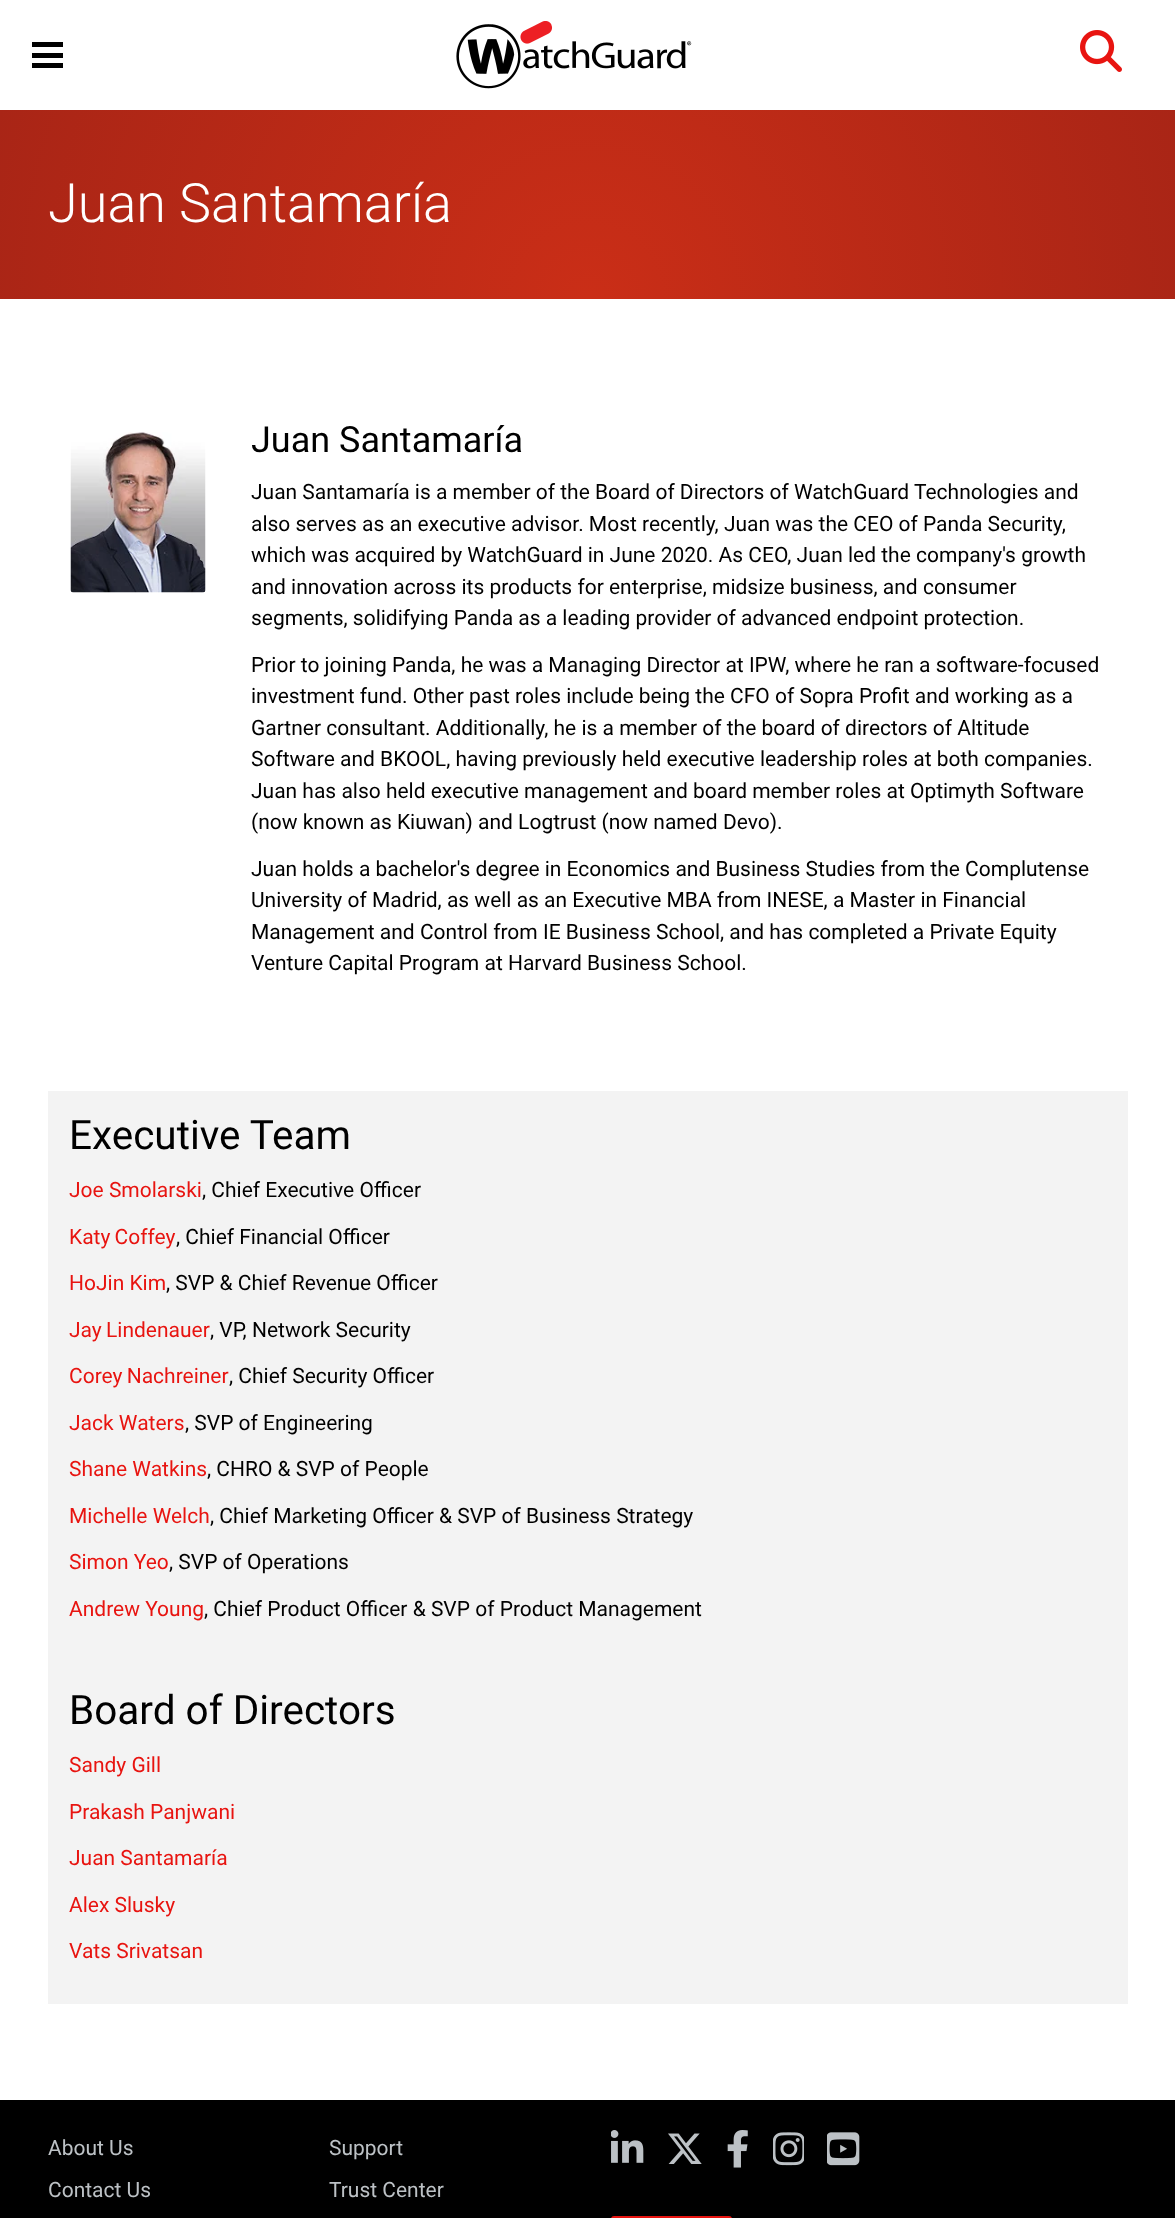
<svg xmlns="http://www.w3.org/2000/svg" xmlns:xlink="http://www.w3.org/1999/xlink" width="1175" height="2218" viewBox="0 0 1175 2218">
<style>
.cls-1{font:300 54px Roboto;fill:#ffffff}
.cls-2{font:36px Roboto;fill:#000000}
.cls-3{font:21px Roboto;fill:#000000}
.cls-4{font:40.5px Roboto;fill:#000000}
.cls-5{font:21px Roboto;fill:#e81410}
.cls-6{font:21px Roboto;fill:#bcc1c5}
</style>
<defs>
<radialGradient id="g1" gradientUnits="userSpaceOnUse" cx="588" cy="299" r="618"><stop offset="0" stop-color="#ca2e17"/><stop offset="1" stop-color="#a92516"/></radialGradient>
</defs>
<rect width="100%" height="100%" fill="#ffffff"/>
<rect fill="#000000" x="32" y="42" width="31" height="5"/>
<rect fill="#000000" x="32" y="53" width="31" height="5"/>
<rect fill="#000000" x="32" y="63" width="31" height="5"/>
<image xlink:href="image0.png" x="456" y="21" width="236" height="68"/>
<image xlink:href="image1.png" x="1080" y="30" width="42" height="42"/>
<rect fill="url(#g1)" x="0" y="110" width="1175" height="189"/>
<image xlink:href="image2.png" x="70" y="432" width="136" height="161"/>
<rect fill="#f3f3f3" x="48" y="1091" width="1080" height="913"/>
<rect fill="#000000" x="0" y="2100" width="1175" height="118"/>
<image xlink:href="image3.png" x="611" y="2130" width="33" height="33"/>
<image xlink:href="image4.png" x="668" y="2133" width="34" height="31"/>
<image xlink:href="image5.png" x="727" y="2130" width="21" height="38"/>
<image xlink:href="image6.png" x="773" y="2132" width="31" height="34"/>
<image xlink:href="image7.png" x="827" y="2132" width="33" height="34"/>
<rect fill="none" stroke="#e81410" stroke-width="2" x="612" y="2217" width="119" height="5" rx="2"/>
<text class="cls-1" x="48" y="222">Juan Santamaría</text>
<text class="cls-2" x="251" y="452">Juan Santamaría</text>
<text class="cls-3"><tspan x="251" y="499">Juan Santamaría is a member of the Board of Directors of WatchGuard Technologies and</tspan><tspan x="251" y="531">also serves as an executive advisor. Most recently, Juan was the CEO of Panda Security,</tspan><tspan x="251" y="562">which was acquired by WatchGuard in June 2020. As CEO, Juan led the company's growth</tspan><tspan x="251" y="594">and innovation across its products for enterprise, midsize business, and consumer</tspan><tspan x="251" y="625">segments, solidifying Panda as a leading provider of advanced endpoint protection.</tspan></text>
<text class="cls-3"><tspan x="251" y="672">Prior to joining Panda, he was a Managing Director at IPW, where he ran a software-focused</tspan><tspan x="251" y="703">investment fund. Other past roles include being the CFO of Sopra Profit and working as a</tspan><tspan x="251" y="735">Gartner consultant. Additionally, he is a member of the board of directors of Altitude</tspan><tspan x="251" y="766">Software and BKOOL, having previously held executive leadership roles at both companies.</tspan><tspan x="251" y="798">Juan has also held executive management and board member roles at Optimyth Software</tspan><tspan x="251" y="829">(now known as Kiuwan) and Logtrust (now named Devo).</tspan></text>
<text class="cls-3"><tspan x="251" y="876">Juan holds a bachelor's degree in Economics and Business Studies from the Complutense</tspan><tspan x="251" y="907">University of Madrid, as well as an Executive MBA from INESE, a Master in Financial</tspan><tspan x="251" y="939">Management and Control from IE Business School, and has completed a Private Equity</tspan><tspan x="251" y="970">Venture Capital Program at Harvard Business School.</tspan></text>
<text class="cls-4" x="69" y="1149">Executive Team</text>
<text class="cls-5" x="69" y="1197">Joe Smolarski</text>
<text class="cls-3" x="202" y="1197">, Chief Executive Officer</text>
<text class="cls-5" x="69" y="1244" word-spacing="-1">Katy Coffey</text>
<text class="cls-3" x="176" y="1244">, Chief Financial Officer</text>
<text class="cls-5" x="69" y="1290">HoJin Kim</text>
<text class="cls-3" x="166" y="1290">, SVP &amp; Chief Revenue Officer</text>
<text class="cls-5" x="69" y="1337" word-spacing="-1">Jay Lindenauer</text>
<text class="cls-3" x="210" y="1337">, VP, Network Security</text>
<text class="cls-5" x="69" y="1383" word-spacing="-1">Corey Nachreiner</text>
<text class="cls-3" x="229" y="1383">, Chief Security Officer</text>
<text class="cls-5" x="69" y="1430">Jack Waters</text>
<text class="cls-3" x="185" y="1430">, SVP of Engineering</text>
<text class="cls-5" x="69" y="1476">Shane Watkins</text>
<text class="cls-3" x="207" y="1476">, CHRO &amp; SVP of People</text>
<text class="cls-5" x="69" y="1523">Michelle Welch</text>
<text class="cls-3" x="210" y="1523">, Chief Marketing Officer &amp; SVP of Business Strategy</text>
<text class="cls-5" x="69" y="1569">Simon Yeo</text>
<text class="cls-3" x="169" y="1569">, SVP of Operations</text>
<text class="cls-5" x="69" y="1616">Andrew Young</text>
<text class="cls-3" x="204" y="1616">, Chief Product Officer &amp; SVP of Product Management</text>
<text class="cls-4" x="69" y="1724">Board of Directors</text>
<text class="cls-5" x="69" y="1772">Sandy Gill</text>
<text class="cls-5" x="69" y="1819">Prakash Panjwani</text>
<text class="cls-5" x="69" y="1865">Juan Santamaría</text>
<text class="cls-5" x="69" y="1912">Alex Slusky</text>
<text class="cls-5" x="69" y="1958">Vats Srivatsan</text>
<text class="cls-6" x="48" y="2155">About Us</text>
<text class="cls-6" x="48" y="2197">Contact Us</text>
<text class="cls-6" x="329" y="2155">Support</text>
<text class="cls-6" x="329" y="2197">Trust Center</text>
</svg>
